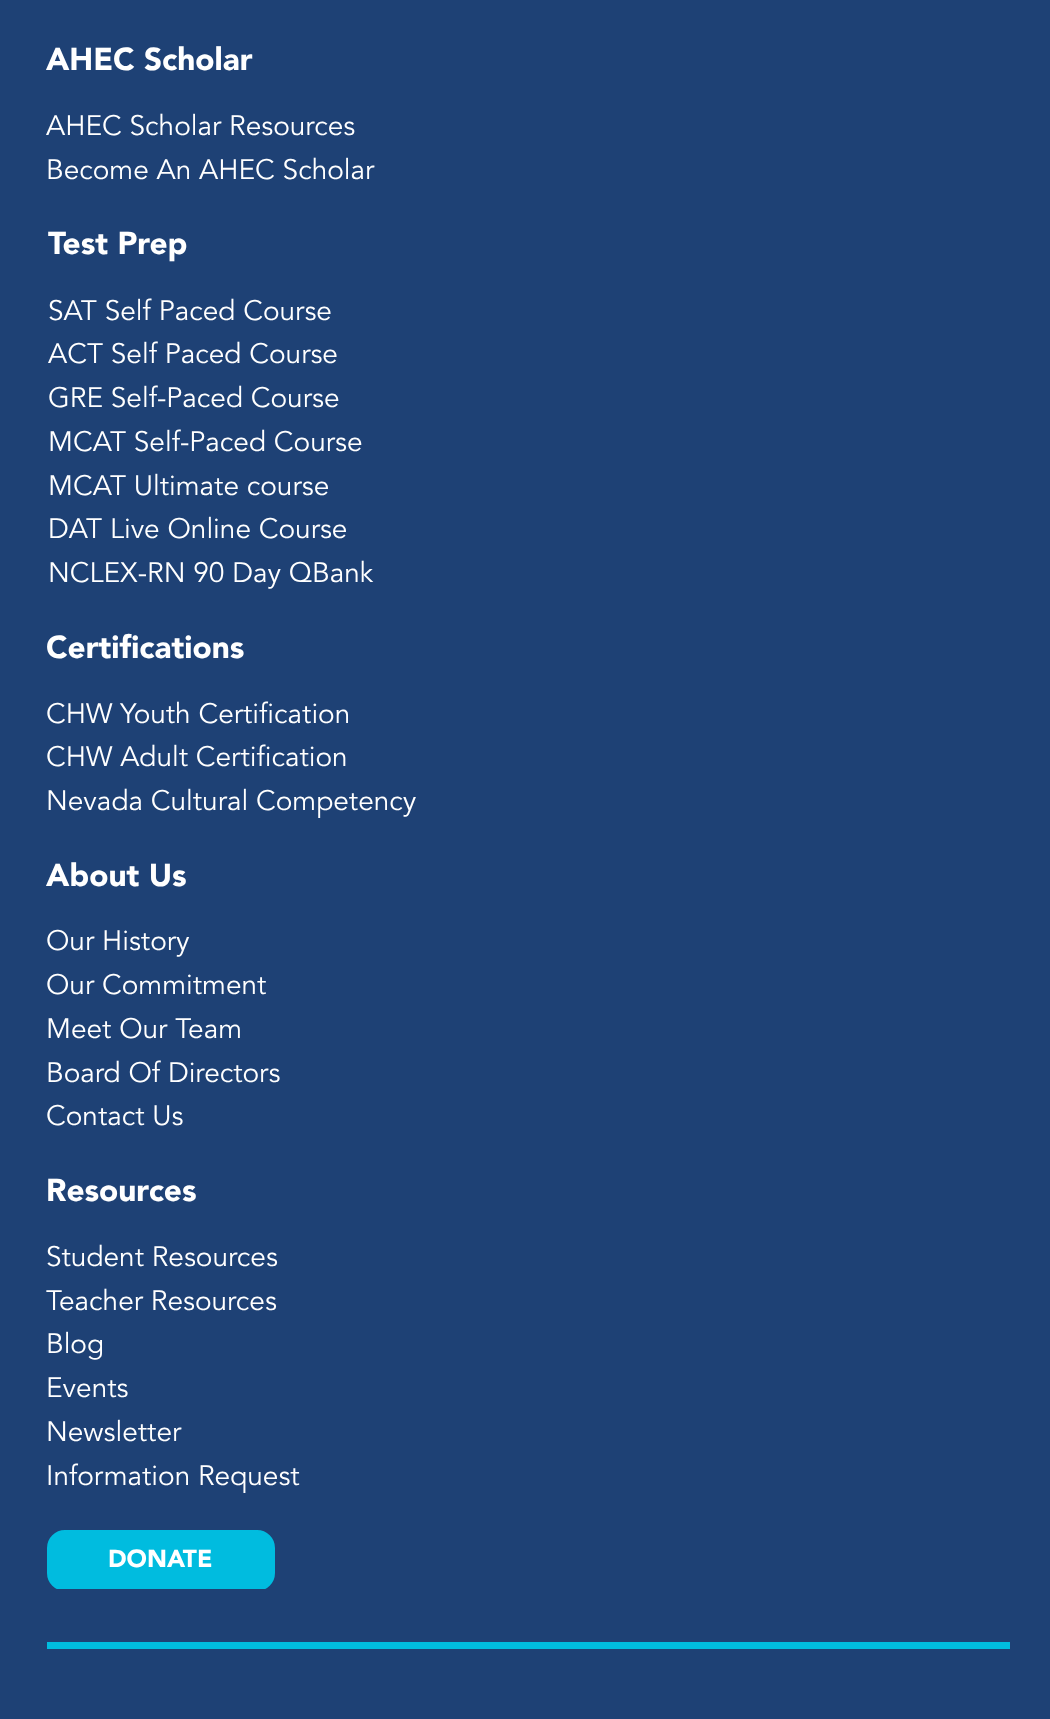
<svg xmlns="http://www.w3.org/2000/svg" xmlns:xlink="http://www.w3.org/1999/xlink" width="1050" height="1719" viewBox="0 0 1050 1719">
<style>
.cls-1{font:900 31.5px Avenir;fill:#ffffff}
.cls-2{font:28px Avenir;fill:#ffffff}
.cls-3{font:900 24.5px Avenir;fill:#ffffff}
</style>
<defs>
<clipPath id="clip1"><rect x="47" y="968" width="219" height="35"/></clipPath>
</defs>
<rect width="100%" height="100%" fill="#1e4175"/>
<rect fill="#00bcdf" stroke="#00bcdf" stroke-width="4" x="49" y="1532" width="224" height="57" rx="16"/>
<rect fill="#1e4175" x="56" y="1589" width="209" height="2"/>
<rect fill="#00bcdf" x="47" y="1642" width="963" height="7"/>
<text class="cls-1" x="46" y="70">AHEC Scholar</text>
<text class="cls-2"><tspan x="46" y="135">AHEC Scholar Resources</tspan><tspan x="46" y="179">Become An AHEC Scholar</tspan></text>
<text class="cls-1" x="48" y="254">Test Prep</text>
<text class="cls-2"><tspan x="48" y="320">SAT Self Paced Course</tspan><tspan x="48" y="363">ACT Self Paced Course</tspan><tspan x="48" y="407">GRE Self-Paced Course</tspan><tspan x="48" y="451">MCAT Self-Paced Course</tspan><tspan x="48" y="495">MCAT Ultimate course</tspan><tspan x="48" y="538">DAT Live Online Course</tspan><tspan x="48" y="582">NCLEX-RN 90 Day QBank</tspan></text>
<text class="cls-1" x="46" y="658">Certifications</text>
<text class="cls-2"><tspan x="46" y="723">CHW Youth Certification</tspan><tspan x="46" y="766">CHW Adult Certification</tspan><tspan x="46" y="810">Nevada Cultural Competency</tspan></text>
<text class="cls-1" x="46" y="886">About Us</text>
<text class="cls-2" x="46" y="950">Our History</text>
<g clip-path="url(#clip1)">
<text class="cls-2" x="46" y="994">Our Commitment</text>
</g>
<text class="cls-2"><tspan x="46" y="1038">Meet Our Team</tspan><tspan x="46" y="1082">Board Of Directors</tspan><tspan x="46" y="1125">Contact Us</tspan></text>
<text class="cls-1" x="46" y="1201">Resources</text>
<text class="cls-2"><tspan x="46" y="1266">Student Resources</tspan><tspan x="46" y="1310">Teacher Resources</tspan><tspan x="46" y="1353">Blog</tspan><tspan x="46" y="1397">Events</tspan><tspan x="46" y="1441">Newsletter</tspan><tspan x="46" y="1485">Information Request</tspan></text>
<text class="cls-3" x="108" y="1567">DONATE</text>
</svg>
